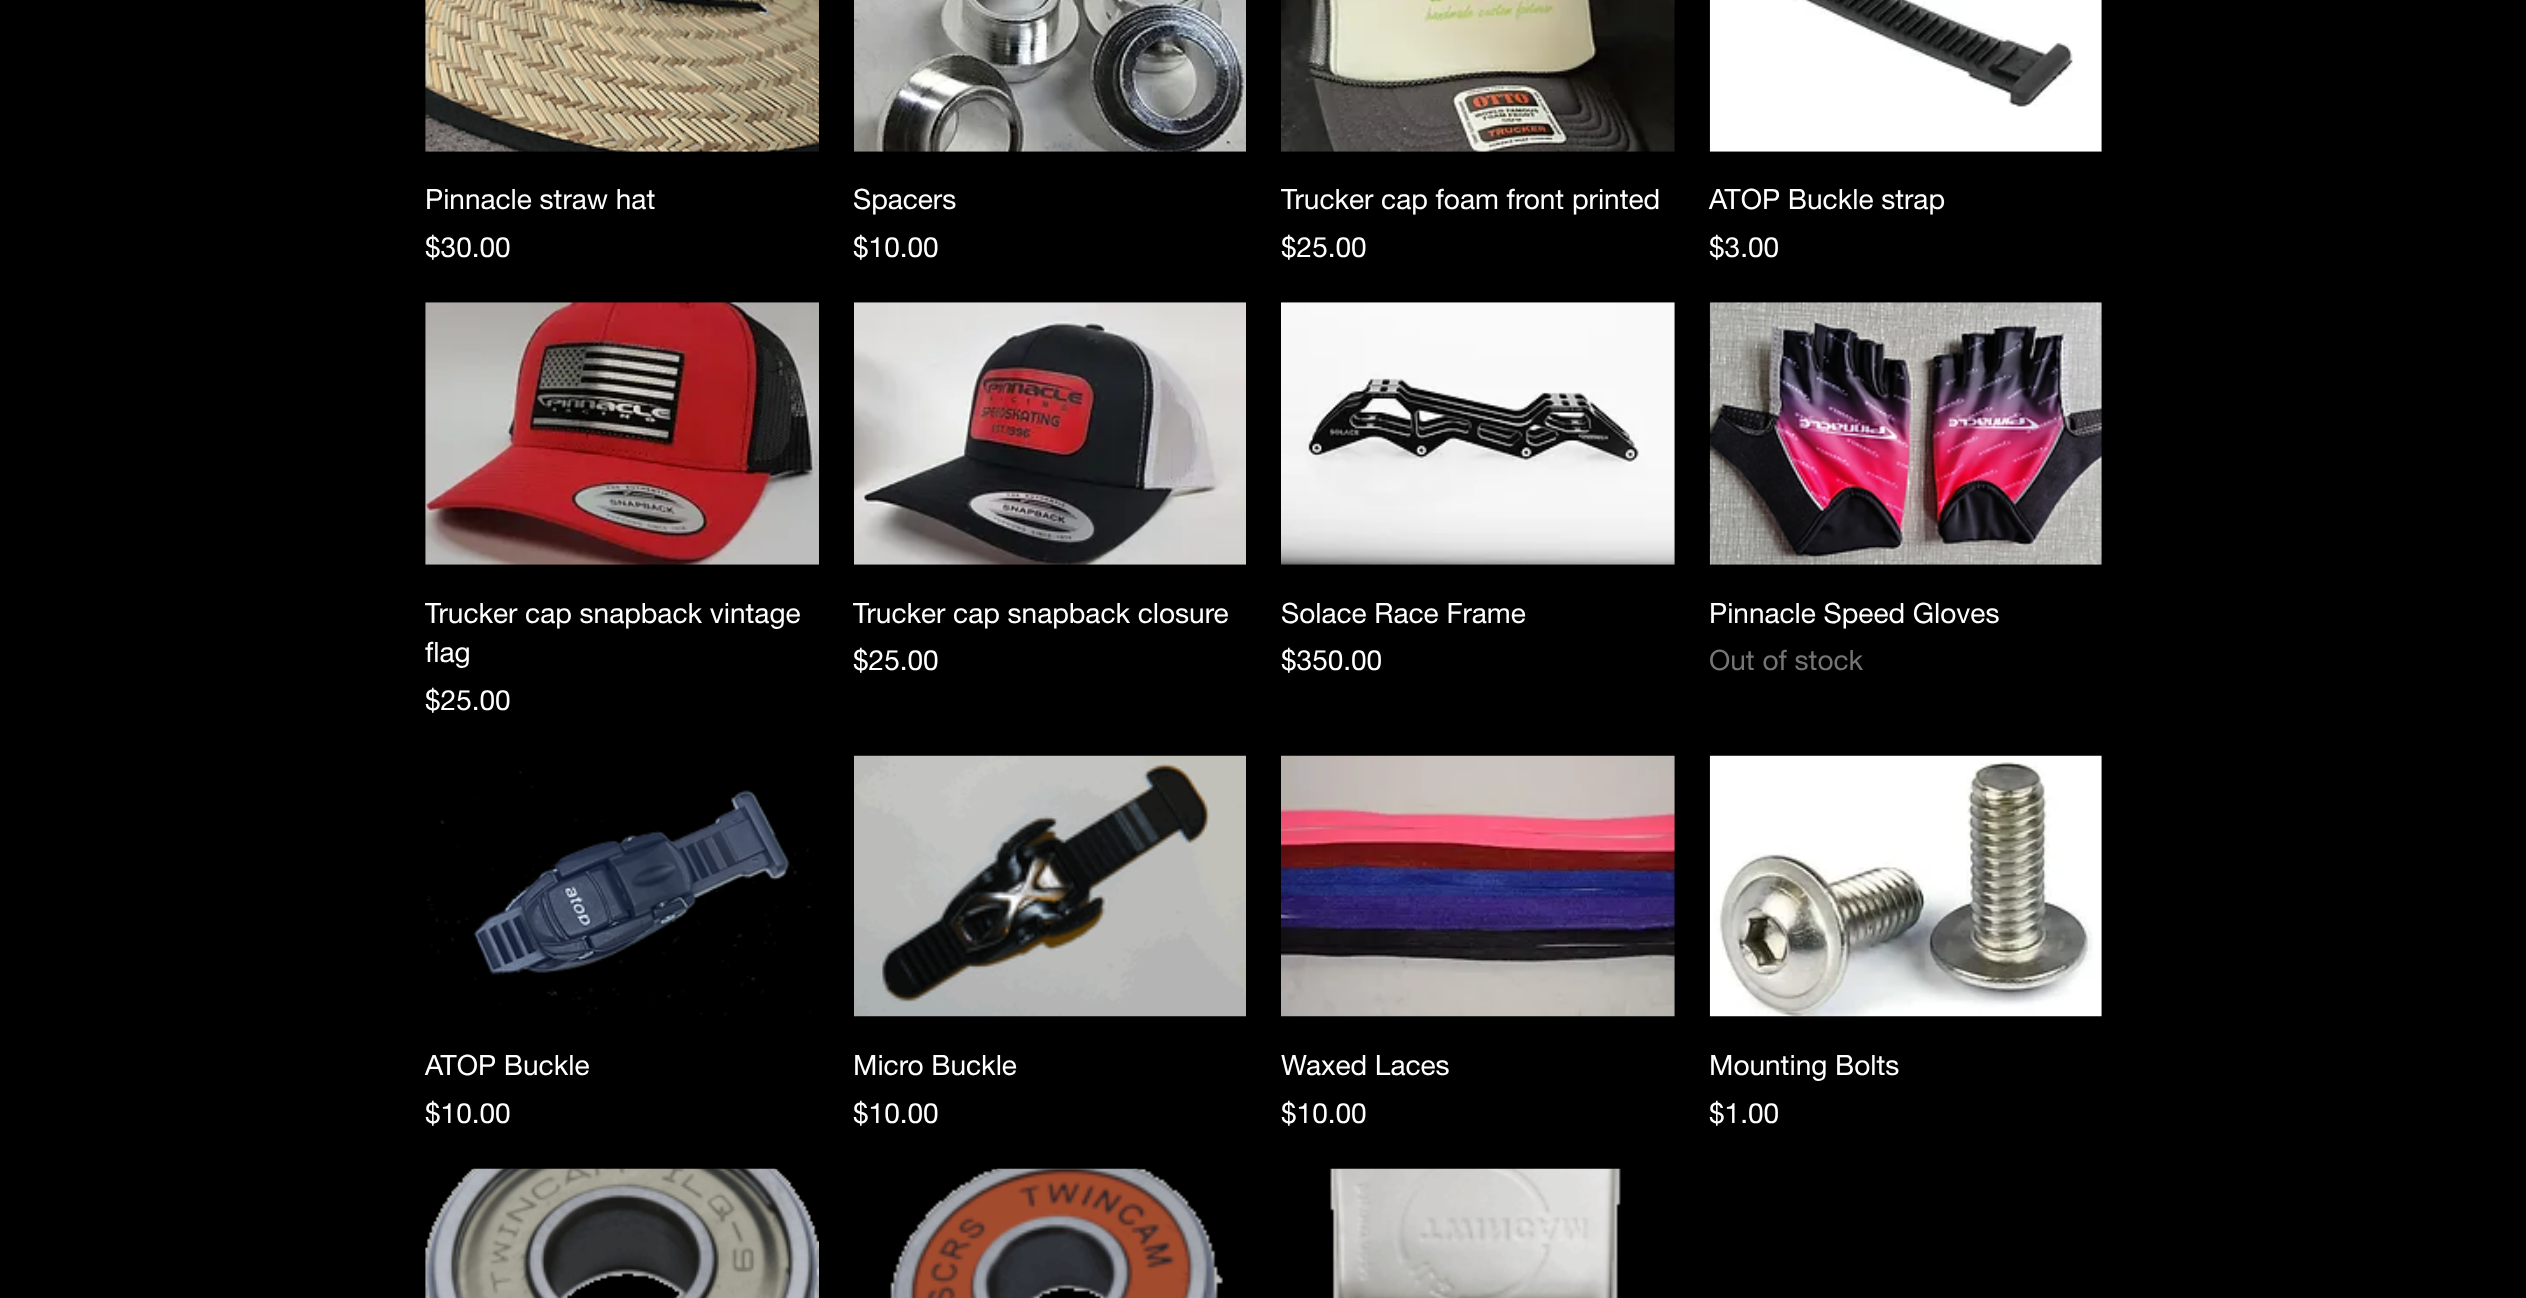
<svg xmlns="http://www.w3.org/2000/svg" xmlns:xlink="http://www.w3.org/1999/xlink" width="2526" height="1298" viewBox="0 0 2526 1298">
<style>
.cls-1{font:28px helvetica neue;fill:#ffffff}
.cls-2{font:28px helvetica neue;fill:#757575}
</style>
<rect width="100%" height="100%" fill="#000000"/>
<image xlink:href="image0.png" x="425" y="0" width="394" height="152"/>
<image xlink:href="image1.png" x="854" y="0" width="392" height="152"/>
<image xlink:href="image2.png" x="1281" y="0" width="394" height="152"/>
<image xlink:href="image3.png" x="1709" y="0" width="393" height="152"/>
<image xlink:href="image4.png" x="425" y="302" width="394" height="263"/>
<image xlink:href="image5.png" x="854" y="302" width="392" height="263"/>
<image xlink:href="image6.png" x="1281" y="302" width="394" height="263"/>
<image xlink:href="image7.png" x="1709" y="302" width="393" height="263"/>
<image xlink:href="image8.png" x="427" y="771" width="385" height="245"/>
<image xlink:href="image9.png" x="854" y="755" width="392" height="262"/>
<image xlink:href="image10.png" x="1281" y="755" width="394" height="262"/>
<image xlink:href="image11.png" x="1709" y="755" width="393" height="262"/>
<image xlink:href="image12.png" x="425" y="1168" width="394" height="130"/>
<image xlink:href="image13.png" x="890" y="1168" width="333" height="130"/>
<image xlink:href="image14.png" x="1330" y="1168" width="291" height="130"/>
<text class="cls-1"><tspan x="425" y="209">Pinnacle straw hat</tspan><tspan x="425" y="257">$30.00</tspan></text>
<text class="cls-1"><tspan x="853" y="209">Spacers</tspan><tspan x="853" y="257">$10.00</tspan></text>
<text class="cls-1"><tspan x="1281" y="209">Trucker cap foam front printed</tspan><tspan x="1281" y="257">$25.00</tspan></text>
<text class="cls-1"><tspan x="1709" y="209">ATOP Buckle strap</tspan><tspan x="1709" y="257">$3.00</tspan></text>
<text class="cls-1"><tspan x="425" y="623">Trucker cap snapback vintage</tspan><tspan x="425" y="662">flag</tspan><tspan x="425" y="710">$25.00</tspan></text>
<text class="cls-1"><tspan x="853" y="623">Trucker cap snapback closure</tspan><tspan x="853" y="670">$25.00</tspan></text>
<text class="cls-1"><tspan x="1281" y="623">Solace Race Frame</tspan><tspan x="1281" y="670">$350.00</tspan></text>
<text class="cls-1" x="1709" y="623">Pinnacle Speed Gloves</text>
<text class="cls-2" x="1709" y="670">Out of stock</text>
<text class="cls-1"><tspan x="425" y="1075">ATOP Buckle</tspan><tspan x="425" y="1123">$10.00</tspan></text>
<text class="cls-1"><tspan x="853" y="1075">Micro Buckle</tspan><tspan x="853" y="1123">$10.00</tspan></text>
<text class="cls-1"><tspan x="1281" y="1075">Waxed Laces</tspan><tspan x="1281" y="1123">$10.00</tspan></text>
<text class="cls-1"><tspan x="1709" y="1075">Mounting Bolts</tspan><tspan x="1709" y="1123">$1.00</tspan></text>
</svg>
